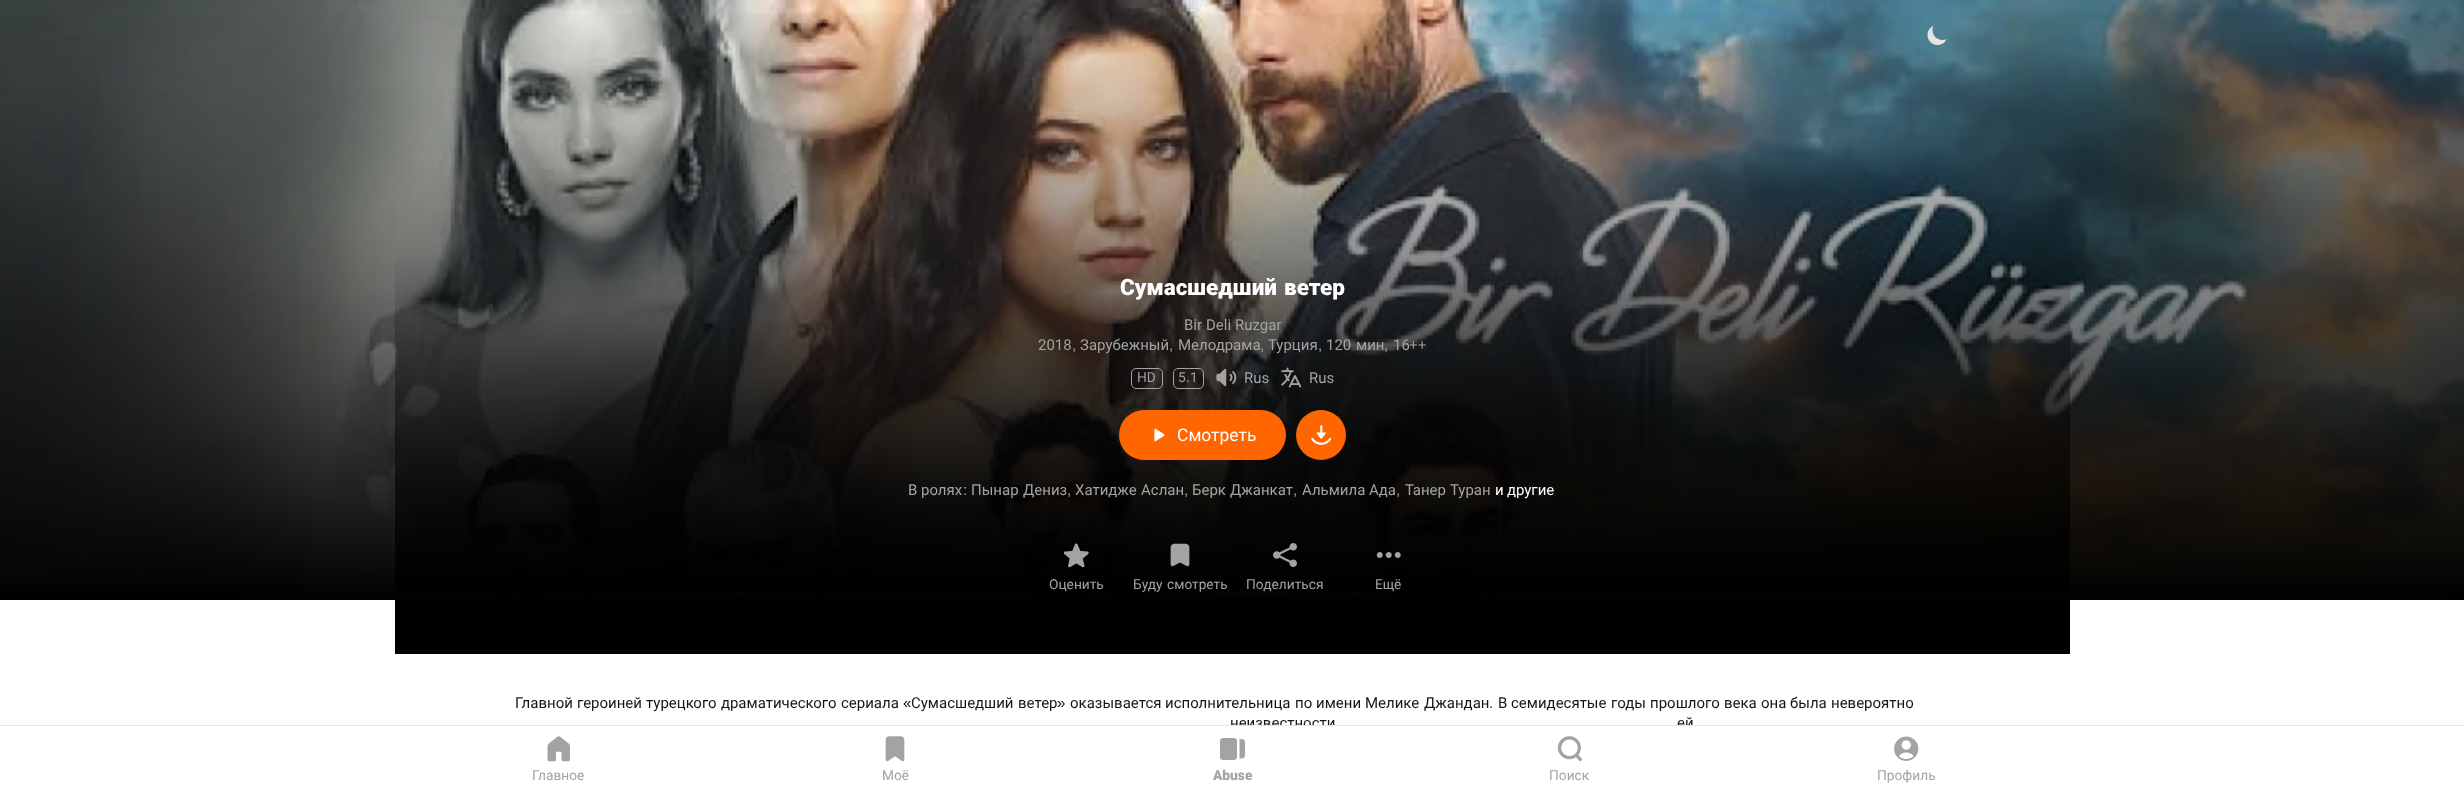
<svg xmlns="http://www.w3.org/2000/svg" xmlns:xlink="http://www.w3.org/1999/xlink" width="2464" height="790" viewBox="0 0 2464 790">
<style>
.cls-1{font:900 22.5px Roboto;fill:#ffffff}
.cls-2{font:15px Roboto;fill:#a3a3a3}
.cls-3{font:15px Liberation Sans;fill:#a3a3a3}
.cls-4{font:13.75px Roboto;fill:#a3a3a3}
.cls-5{font:13.75px Liberation Sans;fill:#a3a3a3}
.cls-6{font:17.5px Roboto;fill:#ffffff}
.cls-7{font:15px Roboto;fill:#ffffff}
.cls-8{font:15px Roboto;fill:#171717}
.cls-9{font:15px Liberation Sans;fill:#171717}
.cls-10{font:900 13.75px Roboto;fill:#a3a3a3}
</style>
<defs>
<linearGradient id="g1" gradientUnits="userSpaceOnUse" x1="1233" y1="600" x2="1233" y2="0"><stop offset="0" stop-color="#000000"/><stop offset="1" stop-color="#000000" stop-opacity="0"/></linearGradient>
<linearGradient id="g2" gradientUnits="userSpaceOnUse" x1="1233" y1="635" x2="1233" y2="250"><stop offset="0" stop-color="#000000"/><stop offset="1" stop-color="#000000" stop-opacity="0"/></linearGradient>
</defs>
<rect width="100%" height="100%" fill="#ffffff"/>
<image xlink:href="image1.png" x="0" y="0" width="2464" height="596"/>
<rect fill="url(#g1)" x="0" y="13" width="2464" height="587"/>
<image xlink:href="image0.png" x="1927" y="26" width="20" height="19"/>
<rect fill="#000000" x="395" y="600" width="1675" height="54"/>
<rect fill="url(#g2)" x="395" y="258" width="1675" height="334"/>
<rect fill="none" stroke="#a3a3a3" x="1131.5" y="368.5" width="31" height="20" rx="4.5"/>
<rect fill="none" stroke="#a3a3a3" x="1173.5" y="368.5" width="30" height="20" rx="4.5"/>
<image xlink:href="image2.png" x="1216" y="368" width="21" height="19"/>
<image xlink:href="image3.png" x="1281" y="367" width="21" height="21"/>
<rect fill="#ff6600" x="1119" y="410" width="167" height="50" rx="25"/>
<image xlink:href="image4.png" x="1154" y="428" width="11" height="14"/>
<circle fill="#ff6600" cx="1321" cy="435" r="25"/>
<image xlink:href="image5.png" x="1311" y="425" width="20" height="20"/>
<image xlink:href="image6.png" x="1063" y="543" width="26" height="25"/>
<image xlink:href="image7.png" x="1170" y="543" width="20" height="24"/>
<image xlink:href="image8.png" x="1273" y="543" width="24" height="24"/>
<image xlink:href="image9.png" x="1376" y="552" width="25" height="6"/>
<image xlink:href="image10.png" x="547" y="736" width="23" height="26"/>
<image xlink:href="image11.png" x="885" y="736" width="20" height="26"/>
<image xlink:href="image12.png" x="1220" y="738" width="25" height="22"/>
<image xlink:href="image13.png" x="1557" y="736" width="25" height="26"/>
<image xlink:href="image14.png" x="1894" y="736" width="25" height="25"/>
<text class="cls-1" x="1120" y="295">Сумасшедший</text>
<text class="cls-1" x="1284" y="295">ветер</text>
<text class="cls-2" x="1184" y="330">Bir</text>
<text class="cls-2" x="1206" y="330">Deli</text>
<text class="cls-2" x="1235" y="330">Ruzgar</text>
<text class="cls-2" x="1038" y="350">2018</text>
<text class="cls-3" x="1072" y="350">,</text>
<text class="cls-2" x="1080" y="350">Зарубежный</text>
<text class="cls-3" x="1169" y="350">,</text>
<text class="cls-2" x="1178" y="350">Мелодрама</text>
<text class="cls-3" x="1260" y="350">,</text>
<text class="cls-2" x="1268" y="350">Турция</text>
<text class="cls-3" x="1318" y="350">,</text>
<text class="cls-2" x="1326" y="350">120</text>
<text class="cls-2" x="1356" y="350">мин</text>
<text class="cls-3" x="1384" y="350">,</text>
<text class="cls-2" x="1393" y="350">16</text>
<text class="cls-3" x="1409" y="350">++</text>
<text class="cls-4" x="1137" y="382">HD</text>
<text class="cls-4" x="1178" y="382">5</text>
<text class="cls-5" x="1186" y="382">.</text>
<text class="cls-4" x="1190" y="382">1</text>
<text class="cls-2" x="1244" y="383">Rus</text>
<text class="cls-2" x="1309" y="383">Rus</text>
<text class="cls-6" x="1177" y="441">Смотреть</text>
<text class="cls-2" x="908" y="495">В</text>
<text class="cls-2" x="921" y="495">ролях</text>
<text class="cls-3" x="963" y="495">:</text>
<text class="cls-2" x="971" y="495">Пынар</text>
<text class="cls-2" x="1023" y="495">Дениз</text>
<text class="cls-3" x="1067" y="495">,</text>
<text class="cls-2" x="1075" y="495">Хатидже</text>
<text class="cls-2" x="1141" y="495">Аслан</text>
<text class="cls-3" x="1184" y="495">,</text>
<text class="cls-2" x="1192" y="495">Берк</text>
<text class="cls-2" x="1230" y="495">Джанкат</text>
<text class="cls-3" x="1293" y="495">,</text>
<text class="cls-2" x="1302" y="495">Альмила</text>
<text class="cls-2" x="1369" y="495">Ада</text>
<text class="cls-3" x="1396" y="495">,</text>
<text class="cls-2" x="1405" y="495">Танер</text>
<text class="cls-2" x="1450" y="495">Туран</text>
<text class="cls-7" x="1495" y="495">и</text>
<text class="cls-7" x="1507" y="495">другие</text>
<text class="cls-4" x="1049" y="589">Оценить</text>
<text class="cls-4" x="1133" y="589">Буду</text>
<text class="cls-4" x="1167" y="589">смотреть</text>
<text class="cls-4" x="1246" y="589">Поделиться</text>
<text class="cls-4" x="1375" y="589">Ещё</text>
<text class="cls-8" x="515" y="708">Главной</text>
<text class="cls-8" x="577" y="708">героиней</text>
<text class="cls-8" x="646" y="708">турецкого</text>
<text class="cls-8" x="721" y="708">драматического</text>
<text class="cls-8" x="841" y="708">сериала</text>
<text class="cls-9" x="903" y="708">«</text>
<text class="cls-8" x="911" y="708">Сумасшедший</text>
<text class="cls-8" x="1018" y="708">ветер</text>
<text class="cls-9" x="1057" y="708">»</text>
<text class="cls-8" x="1070" y="708">оказывается</text>
<text class="cls-8" x="1165" y="708">исполнительница</text>
<text class="cls-8" x="1295" y="708">по</text>
<text class="cls-8" x="1316" y="708">имени</text>
<text class="cls-8" x="1365" y="708">Мелике</text>
<text class="cls-8" x="1424" y="708">Джандан</text>
<text class="cls-9" x="1489" y="708">.</text>
<text class="cls-8" x="1498" y="708">В</text>
<text class="cls-8" x="1511" y="708">семидесятые</text>
<text class="cls-8" x="1611" y="708">годы</text>
<text class="cls-8" x="1650" y="708">прошлого</text>
<text class="cls-8" x="1724" y="708">века</text>
<text class="cls-8" x="1761" y="708">она</text>
<text class="cls-8" x="1790" y="708">была</text>
<text class="cls-8" x="1831" y="708">невероятно</text>
<text class="cls-8" x="1230" y="728">неизвестности</text>
<text class="cls-8" x="1677" y="728">ей</text>
<rect fill="#ffffff" x="1231" y="726" width="462" height="3"/>
<rect fill="#e5e5e5" x="0" y="725" width="2464" height="1"/>
<text class="cls-4" x="532" y="780">Главное</text>
<text class="cls-4" x="882" y="780">Моё</text>
<text class="cls-10" x="1213" y="780">Abuse</text>
<text class="cls-4" x="1549" y="780">Поиск</text>
<text class="cls-4" x="1877" y="780">Профиль</text>
</svg>
